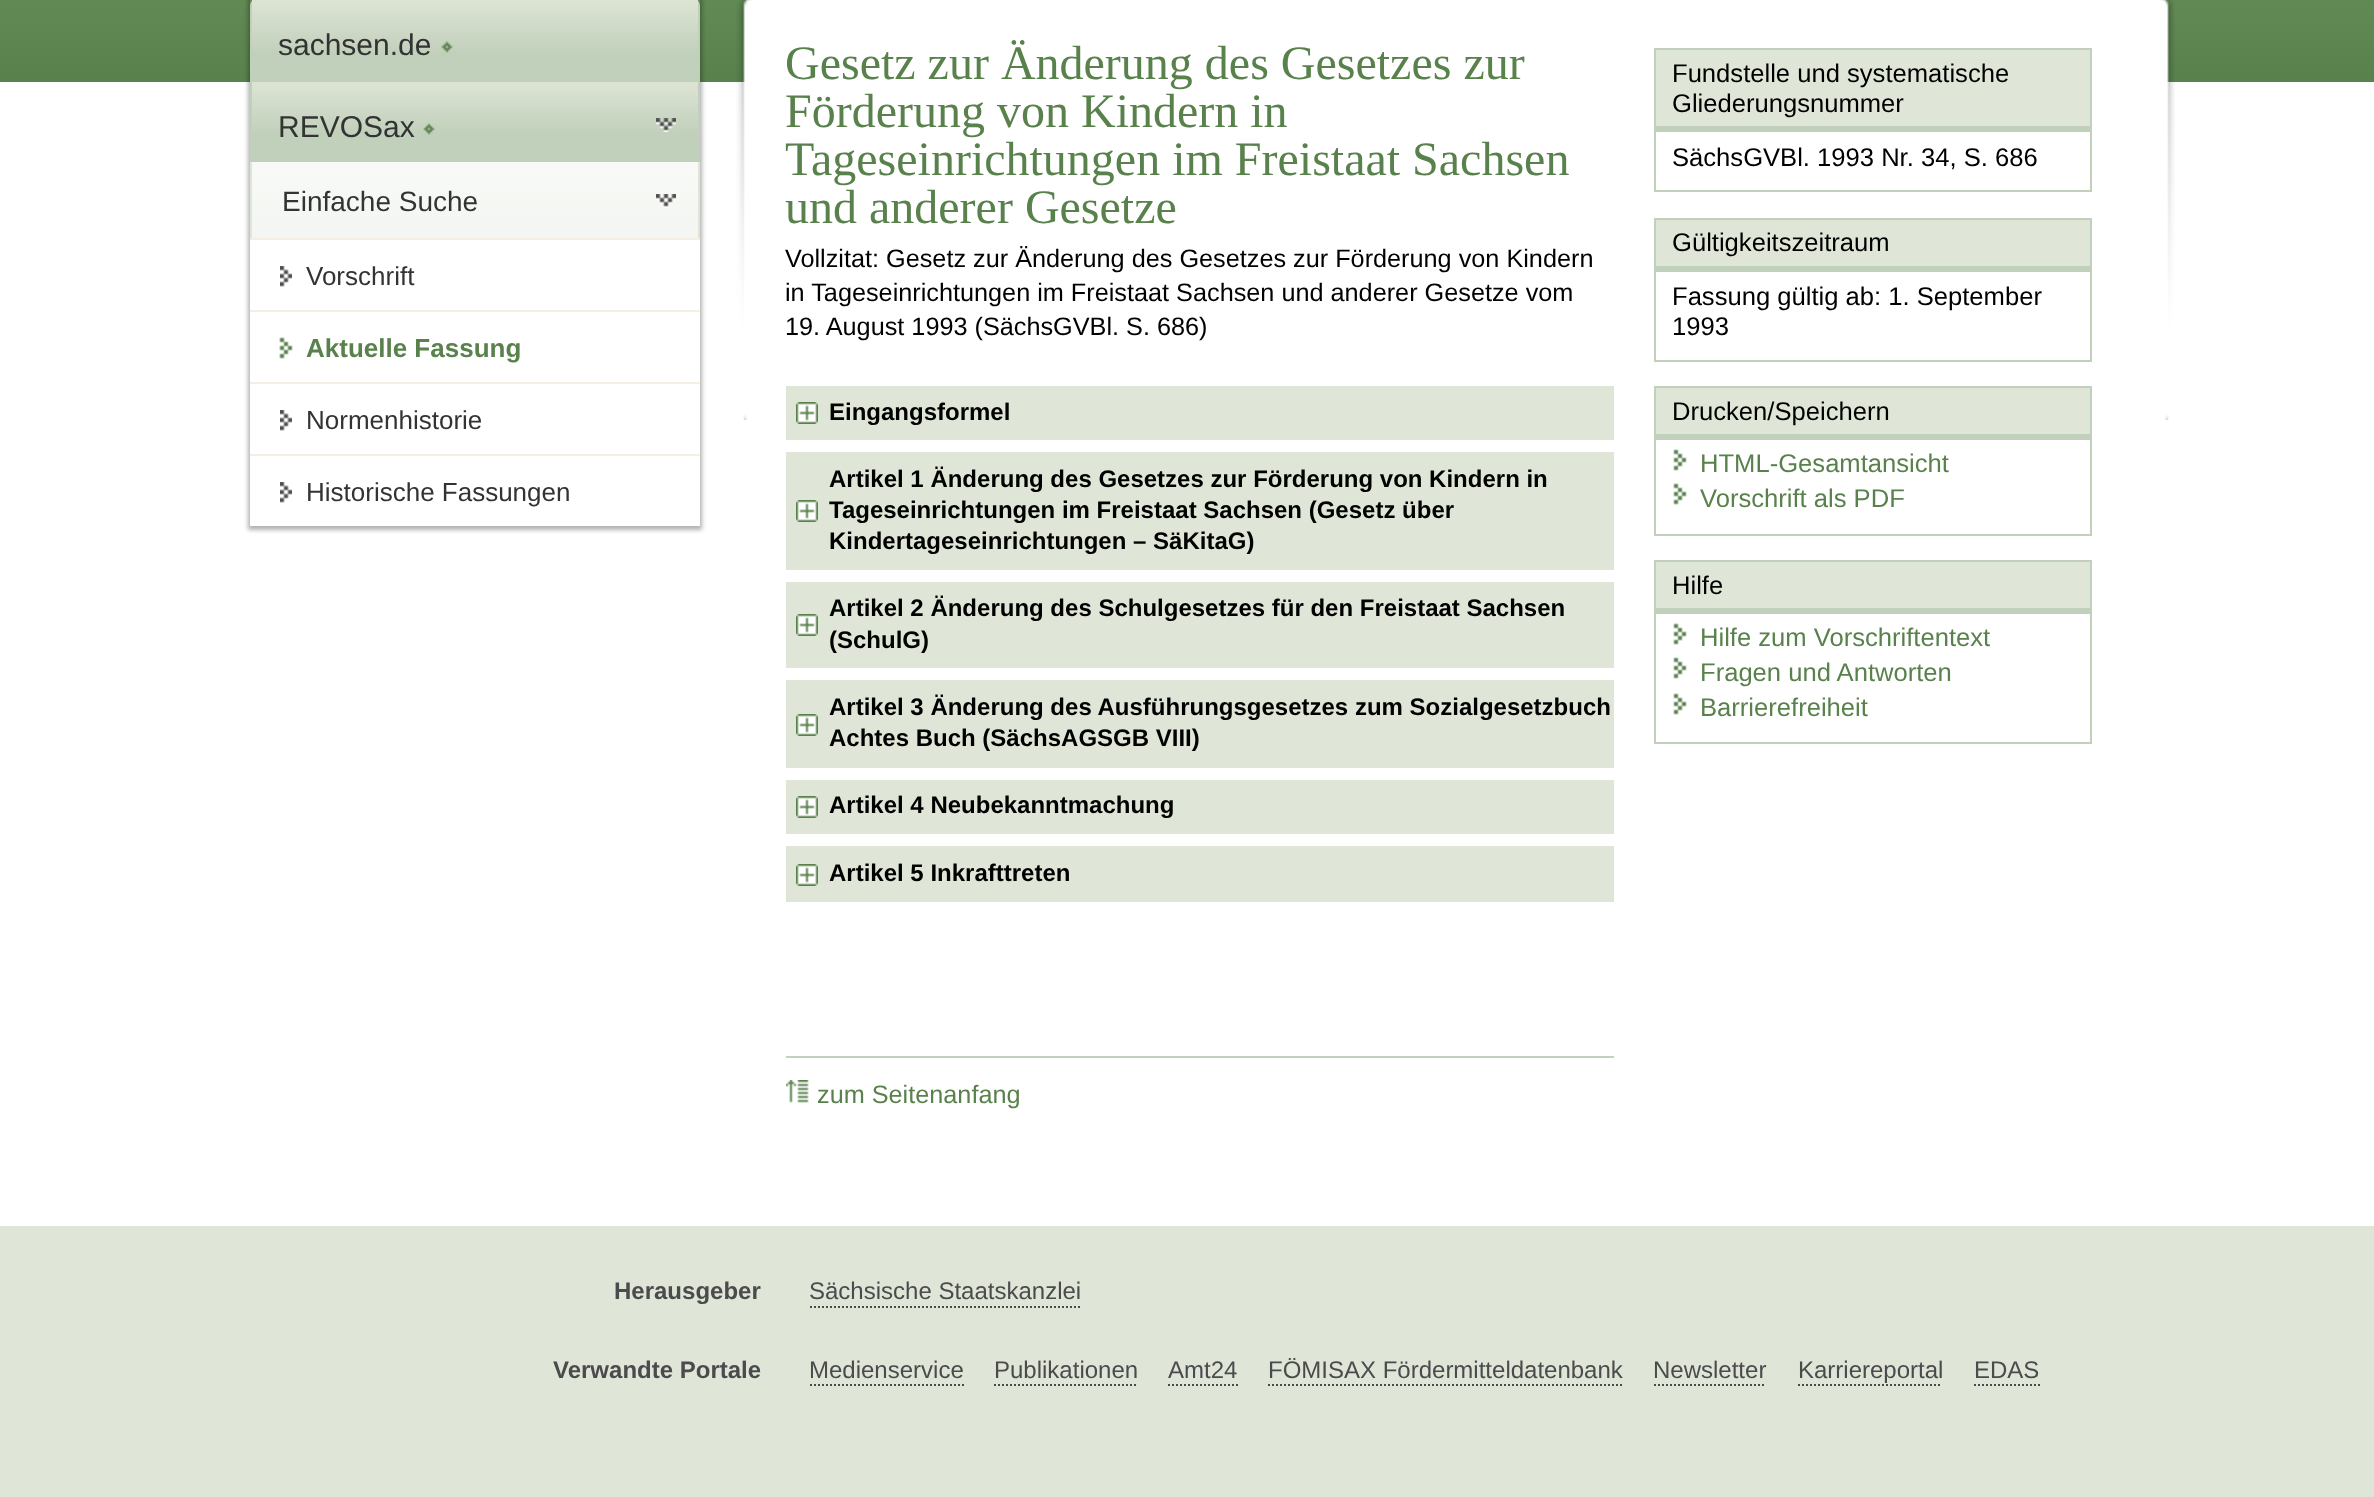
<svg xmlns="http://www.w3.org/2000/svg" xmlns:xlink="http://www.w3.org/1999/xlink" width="2374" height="1497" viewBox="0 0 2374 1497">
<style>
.cls-1{font:30px Liberation Sans;fill:#333333}
.cls-2{font:28px Liberation Sans;fill:#333333}
.cls-3{font:26px Liberation Sans;fill:#333333}
.cls-4{font:bold 26px Liberation Sans;fill:#59814c}
.cls-5{font:48px Liberation Serif;fill:#59814c}
.cls-6{font:25.25px Liberation Sans;fill:#000000}
.cls-7{font:bold 24px Liberation Sans;fill:#000000}
.cls-8{font:25.25px Liberation Sans;fill:#59814c}
.cls-9{font:25.6px Liberation Sans;fill:#000000}
.cls-10{font:25.6px Liberation Sans;fill:#59814c}
.cls-11{font:bold 24px Liberation Sans;fill:#4b4b4d}
.cls-12{font:24px Liberation Sans;fill:#4b4b4d}
</style>
<defs>
<clipPath id="clip1"><path d="M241 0H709V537H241ZM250-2H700V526H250Z" clip-rule="evenodd"/></clipPath>
<linearGradient id="g1" gradientUnits="userSpaceOnUse" x1="475" y1="0" x2="475" y2="82"><stop offset="0" stop-color="#dde4d4"/><stop offset="0.66" stop-color="#c1d0bb"/><stop offset="1" stop-color="#c1d0bb"/></linearGradient>
<linearGradient id="g2" gradientUnits="userSpaceOnUse" x1="475" y1="82" x2="475" y2="160"><stop offset="0" stop-color="#dde4d4"/><stop offset="0.66" stop-color="#c1d0bb"/><stop offset="1" stop-color="#c1d0bb"/></linearGradient>
</defs>
<rect width="100%" height="100%" fill="#ffffff"/>
<image xlink:href="image0.png" x="0" y="0" width="2374" height="82"/>
<g clip-path="url(#clip1)">
<rect fill="#000000" fill-opacity="0.3" filter="blur(2px)" x="248" y="-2" width="454" height="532"/>
</g>
<path fill="none" stroke="#c1d0bb" stroke-width="2" d="M258-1H692C696-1 699 2 699 6V161H251V6C251 2 254-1 258-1Z"/>
<rect fill="url(#g1)" x="252" y="0" width="446" height="82"/>
<image xlink:href="image1.png" x="441" y="41" width="12" height="12"/>
<rect fill="url(#g2)" x="252" y="82" width="446" height="78"/>
<image xlink:href="image2.png" x="656" y="118" width="20" height="14"/>
<image xlink:href="image3.png" x="423" y="123" width="12" height="12"/>
<image xlink:href="image4.png" x="252" y="162" width="446" height="76"/>
<rect fill="#e0e6d7" x="698" y="162" width="2" height="76"/>
<rect fill="#e0e6d7" x="250" y="162" width="2" height="76"/>
<rect fill="#f4eee3" x="250" y="238" width="450" height="2"/>
<image xlink:href="image5.png" x="280" y="266" width="12" height="21"/>
<image xlink:href="image6.png" x="279" y="337" width="14" height="22"/>
<rect fill="#f4eee3" x="250" y="310" width="450" height="2"/>
<rect fill="#f4eee3" x="250" y="382" width="450" height="2"/>
<image xlink:href="image5.png" x="280" y="410" width="12" height="21"/>
<rect fill="#f4eee3" x="250" y="454" width="450" height="2"/>
<image xlink:href="image5.png" x="280" y="482" width="12" height="21"/>
<image xlink:href="image7.png" x="736" y="0" width="1439" height="420"/>
<rect fill="#e0e6d7" x="786" y="386" width="828" height="54"/>
<image xlink:href="image8.png" x="796" y="402" width="22" height="22"/>
<rect fill="#e0e6d7" x="786" y="452" width="828" height="118"/>
<image xlink:href="image8.png" x="796" y="500" width="22" height="22"/>
<rect fill="#e0e6d7" x="786" y="582" width="828" height="86"/>
<image xlink:href="image8.png" x="796" y="614" width="22" height="22"/>
<rect fill="#e0e6d7" x="786" y="680" width="828" height="88"/>
<image xlink:href="image8.png" x="796" y="714" width="22" height="22"/>
<rect fill="#e0e6d7" x="786" y="780" width="828" height="54"/>
<image xlink:href="image8.png" x="796" y="796" width="22" height="22"/>
<rect fill="#e0e6d7" x="786" y="846" width="828" height="56"/>
<image xlink:href="image8.png" x="796" y="864" width="22" height="22"/>
<rect fill="#c1d0bb" x="786" y="1056" width="828" height="2"/>
<image xlink:href="image9.png" x="786" y="1080" width="23" height="23"/>
<rect fill="none" stroke="#c1d0bb" stroke-width="2" x="1655" y="49" width="436" height="142"/>
<rect fill="#e0e6d7" x="1656" y="50" width="434" height="76"/>
<rect fill="#c1d0bb" x="1656" y="126" width="434" height="6"/>
<rect fill="none" stroke="#c1d0bb" stroke-width="2" x="1655" y="219" width="436" height="142"/>
<rect fill="#e0e6d7" x="1656" y="220" width="434" height="46"/>
<rect fill="#c1d0bb" x="1656" y="266" width="434" height="6"/>
<rect fill="none" stroke="#c1d0bb" stroke-width="2" x="1655" y="387" width="436" height="148"/>
<rect fill="#e0e6d7" x="1656" y="388" width="434" height="46"/>
<rect fill="#c1d0bb" x="1656" y="434" width="434" height="6"/>
<image xlink:href="image6.png" x="1673" y="449" width="14" height="22"/>
<image xlink:href="image6.png" x="1673" y="483" width="14" height="22"/>
<rect fill="none" stroke="#c1d0bb" stroke-width="2" x="1655" y="561" width="436" height="182"/>
<rect fill="#e0e6d7" x="1656" y="562" width="434" height="46"/>
<rect fill="#c1d0bb" x="1656" y="608" width="434" height="6"/>
<image xlink:href="image6.png" x="1673" y="623" width="14" height="22"/>
<image xlink:href="image6.png" x="1673" y="657" width="14" height="22"/>
<image xlink:href="image6.png" x="1673" y="693" width="14" height="22"/>
<rect fill="#e0e6d7" x="0" y="1226" width="2374" height="271"/>
<path fill="none" stroke="#4b4b4d" stroke-width="2" stroke-dasharray="2 2" d="M810 1307H1082"/>
<path fill="none" stroke="#4b4b4d" stroke-width="2" stroke-dasharray="2 2" d="M810 1385H964"/>
<path fill="none" stroke="#4b4b4d" stroke-width="2" stroke-dasharray="2 2" d="M994 1385H1138"/>
<path fill="none" stroke="#4b4b4d" stroke-width="2" stroke-dasharray="2 2" d="M1168 1385H1238"/>
<path fill="none" stroke="#4b4b4d" stroke-width="2" stroke-dasharray="2 2" d="M1268 1385H1622"/>
<path fill="none" stroke="#4b4b4d" stroke-width="2" stroke-dasharray="2 2" d="M1654 1385H1766"/>
<path fill="none" stroke="#4b4b4d" stroke-width="2" stroke-dasharray="2 2" d="M1798 1385H1942"/>
<path fill="none" stroke="#4b4b4d" stroke-width="2" stroke-dasharray="2 2" d="M1974 1385H2040"/>
<text class="cls-1" x="278" y="55">sachsen.de</text>
<text class="cls-1" x="278" y="137">REVOSax</text>
<text class="cls-2" x="282" y="211">Einfache Suche</text>
<text class="cls-3" x="306" y="285">Vorschrift</text>
<text class="cls-4" x="306" y="357">Aktuelle Fassung</text>
<text class="cls-3" x="306" y="429">Normenhistorie</text>
<text class="cls-3" x="306" y="501">Historische Fassungen</text>
<text class="cls-5"><tspan x="785" y="79">Gesetz zur Änderung des Gesetzes zur</tspan><tspan x="785" y="127">Förderung von Kindern in</tspan><tspan x="785" y="175">Tageseinrichtungen im Freistaat Sachsen</tspan><tspan x="785" y="223">und anderer Gesetze</tspan></text>
<text class="cls-6"><tspan x="785" y="267">Vollzitat: Gesetz zur Änderung des Gesetzes zur Förderung von Kindern</tspan><tspan x="785" y="301">in Tageseinrichtungen im Freistaat Sachsen und anderer Gesetze vom</tspan><tspan x="785" y="335">19. August 1993 (SächsGVBl. S. 686)</tspan></text>
<text class="cls-7" x="829" y="420">Eingangsformel</text>
<text class="cls-7"><tspan x="829" y="487">Artikel 1 Änderung des Gesetzes zur Förderung von Kindern in</tspan><tspan x="829" y="518">Tageseinrichtungen im Freistaat Sachsen (Gesetz über</tspan><tspan x="829" y="549">Kindertageseinrichtungen – SäKitaG)</tspan></text>
<text class="cls-7"><tspan x="829" y="616">Artikel 2 Änderung des Schulgesetzes für den Freistaat Sachsen</tspan><tspan x="829" y="648">(SchulG)</tspan></text>
<text class="cls-7"><tspan x="829" y="715">Artikel 3 Änderung des Ausführungsgesetzes zum Sozialgesetzbuch</tspan><tspan x="829" y="746">Achtes Buch (SächsAGSGB VIII)</tspan></text>
<text class="cls-7" x="829" y="813">Artikel 4 Neubekanntmachung</text>
<text class="cls-7" x="829" y="881">Artikel 5 Inkrafttreten</text>
<text class="cls-8" x="817" y="1103">zum Seitenanfang</text>
<text class="cls-9"><tspan x="1672" y="82">Fundstelle und systematische</tspan><tspan x="1672" y="112">Gliederungsnummer</tspan></text>
<text class="cls-9" x="1672" y="166">SächsGVBl. 1993 Nr. 34, S. 686</text>
<text class="cls-9" x="1672" y="251">Gültigkeitszeitraum</text>
<text class="cls-9"><tspan x="1672" y="305">Fassung gültig ab: 1. September</tspan><tspan x="1672" y="335">1993</tspan></text>
<text class="cls-9" x="1672" y="420">Drucken/Speichern</text>
<text class="cls-10"><tspan x="1700" y="472">HTML-Gesamtansicht</tspan><tspan x="1700" y="507">Vorschrift als PDF</tspan></text>
<text class="cls-9" x="1672" y="594">Hilfe</text>
<text class="cls-10"><tspan x="1700" y="646">Hilfe zum Vorschriftentext</tspan><tspan x="1700" y="681">Fragen und Antworten</tspan><tspan x="1700" y="716">Barrierefreiheit</tspan></text>
<text class="cls-11" x="614" y="1299">Herausgeber</text>
<text class="cls-12" x="809" y="1299">Sächsische Staatskanzlei</text>
<text class="cls-11" x="553" y="1378">Verwandte Portale</text>
<text class="cls-12" x="809" y="1378">Medienservice</text>
<text class="cls-12" x="994" y="1378">Publikationen</text>
<text class="cls-12" x="1168" y="1378">Amt24</text>
<text class="cls-12" x="1268" y="1378">FÖMISAX Fördermitteldatenbank</text>
<text class="cls-12" x="1653" y="1378">Newsletter</text>
<text class="cls-12" x="1798" y="1378">Karriereportal</text>
<text class="cls-12" x="1974" y="1378">EDAS</text>
</svg>
